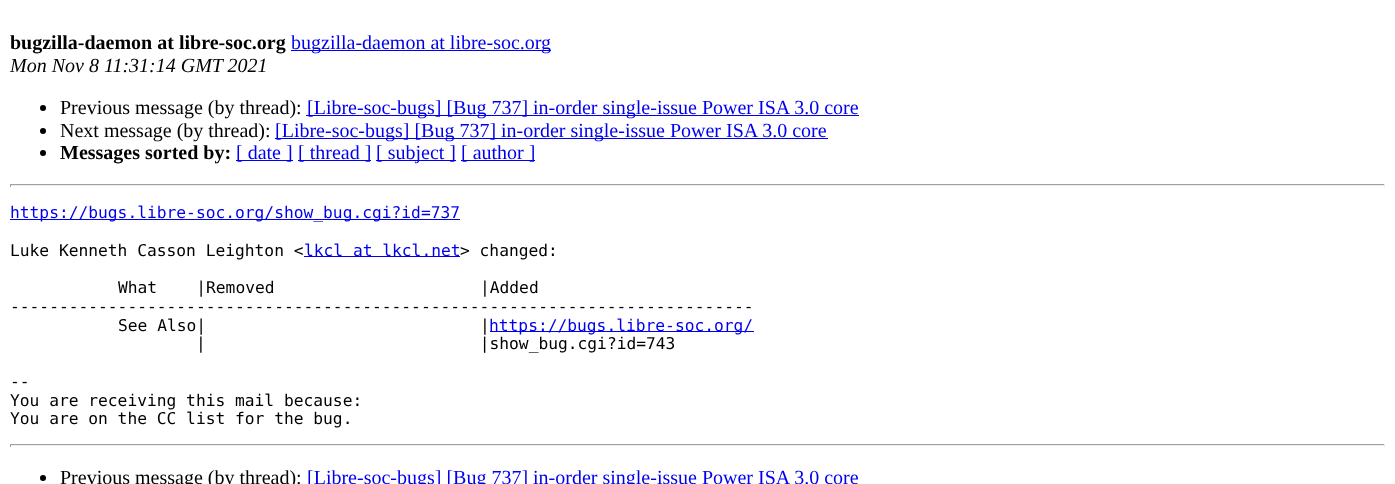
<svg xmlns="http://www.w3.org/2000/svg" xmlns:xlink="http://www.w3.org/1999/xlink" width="1395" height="484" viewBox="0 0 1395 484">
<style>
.cls-1{font:bold 20px Liberation Serif;fill:#000000}
.cls-2{font:20px Liberation Serif;fill:#0000ee}
.cls-3{font:italic 20px Liberation Serif;fill:#000000}
.cls-4{font:20px Liberation Serif;fill:#000000}
.cls-5{font:16.25px DejaVu Sans Mono;fill:#0000ee}
.cls-6{font:16.25px DejaVu Sans Mono;fill:#000000}
</style>
<rect width="100%" height="100%" fill="#ffffff"/>
<rect fill="#0000ee" x="291" y="50" width="260" height="1"/>
<circle fill="#000000" cx="43" cy="108" r="3"/>
<rect fill="#0000ee" x="306" y="115" width="553" height="1"/>
<circle fill="#000000" cx="43" cy="131" r="3"/>
<rect fill="#0000ee" x="275" y="138" width="553" height="1"/>
<circle fill="#000000" cx="43" cy="153" r="3"/>
<rect fill="#0000ee" x="236" y="160" width="57" height="1"/>
<rect fill="#0000ee" x="298" y="160" width="73" height="1"/>
<rect fill="#0000ee" x="376" y="160" width="80" height="1"/>
<rect fill="#0000ee" x="461" y="160" width="74" height="1"/>
<rect fill="#9f9f9f" x="10" y="184" width="1375" height="1"/>
<rect fill="#eeeeee" x="1384" y="184" width="1" height="3"/>
<rect fill="#eeeeee" x="10" y="185" width="1375" height="1"/>
<rect fill="#9f9f9f" x="10" y="184" width="1" height="3"/>
<rect fill="#0000ee" x="10" y="219" width="450" height="1"/>
<rect fill="#0000ee" x="304" y="256" width="156" height="1"/>
<rect fill="#0000ee" x="490" y="331" width="264" height="1"/>
<rect fill="#9f9f9f" x="10" y="444" width="1375" height="1"/>
<rect fill="#eeeeee" x="1384" y="444" width="1" height="3"/>
<rect fill="#eeeeee" x="10" y="445" width="1375" height="1"/>
<rect fill="#9f9f9f" x="10" y="444" width="1" height="3"/>
<circle fill="#000000" cx="43" cy="478" r="3"/>
<text class="cls-1" x="10" y="49">bugzilla-daemon at libre-soc.org</text>
<text class="cls-2" x="291" y="49">bugzilla-daemon at libre-soc.org</text>
<text class="cls-3" x="10" y="72">Mon Nov 8 11:31:14 GMT 2021</text>
<text class="cls-4" x="60" y="114">Previous message (by thread):</text>
<text class="cls-2" x="307" y="114">[Libre-soc-bugs] [Bug 737] in-order single-issue Power ISA 3.0 core</text>
<text class="cls-4" x="60" y="137">Next message (by thread):</text>
<text class="cls-2" x="275" y="137">[Libre-soc-bugs] [Bug 737] in-order single-issue Power ISA 3.0 core</text>
<text class="cls-1" x="60" y="159">Messages sorted by:</text>
<text class="cls-2" x="236" y="159">[ date ]</text>
<text class="cls-2" x="298" y="159">[ thread ]</text>
<text class="cls-2" x="376" y="159">[ subject ]</text>
<text class="cls-2" x="461" y="159">[ author ]</text>
<text class="cls-5" x="10" y="218">https://bugs.libre-soc.org/show_bug.cgi?id=737</text>
<text class="cls-6" x="10" y="256">Luke Kenneth Casson Leighton &lt;</text>
<text class="cls-5" x="304" y="256">lkcl at lkcl.net</text>
<text class="cls-6" x="460" y="256">&gt; changed:</text>
<text class="cls-6" xml:space="preserve" x="118" y="293">What    |Removed                     |Added</text>
<text class="cls-6" x="10" y="312">----------------------------------------------------------------------------</text>
<text class="cls-6" xml:space="preserve" x="118" y="331">See Also|                            |</text>
<text class="cls-5" x="489" y="331">https://bugs.libre-soc.org/</text>
<text class="cls-6" xml:space="preserve" x="196" y="349">|                            |show_bug.cgi?id=743</text>
<text class="cls-6"><tspan x="10" y="387">--</tspan><tspan x="10" y="406">You are receiving this mail because:</tspan><tspan x="10" y="424">You are on the CC list for the bug.</tspan></text>
<text class="cls-4" x="60" y="484">Previous message (by thread):</text>
<text class="cls-2" x="307" y="484">[Libre-soc-bugs] [Bug 737] in-order single-issue Power ISA 3.0 core</text>
</svg>
